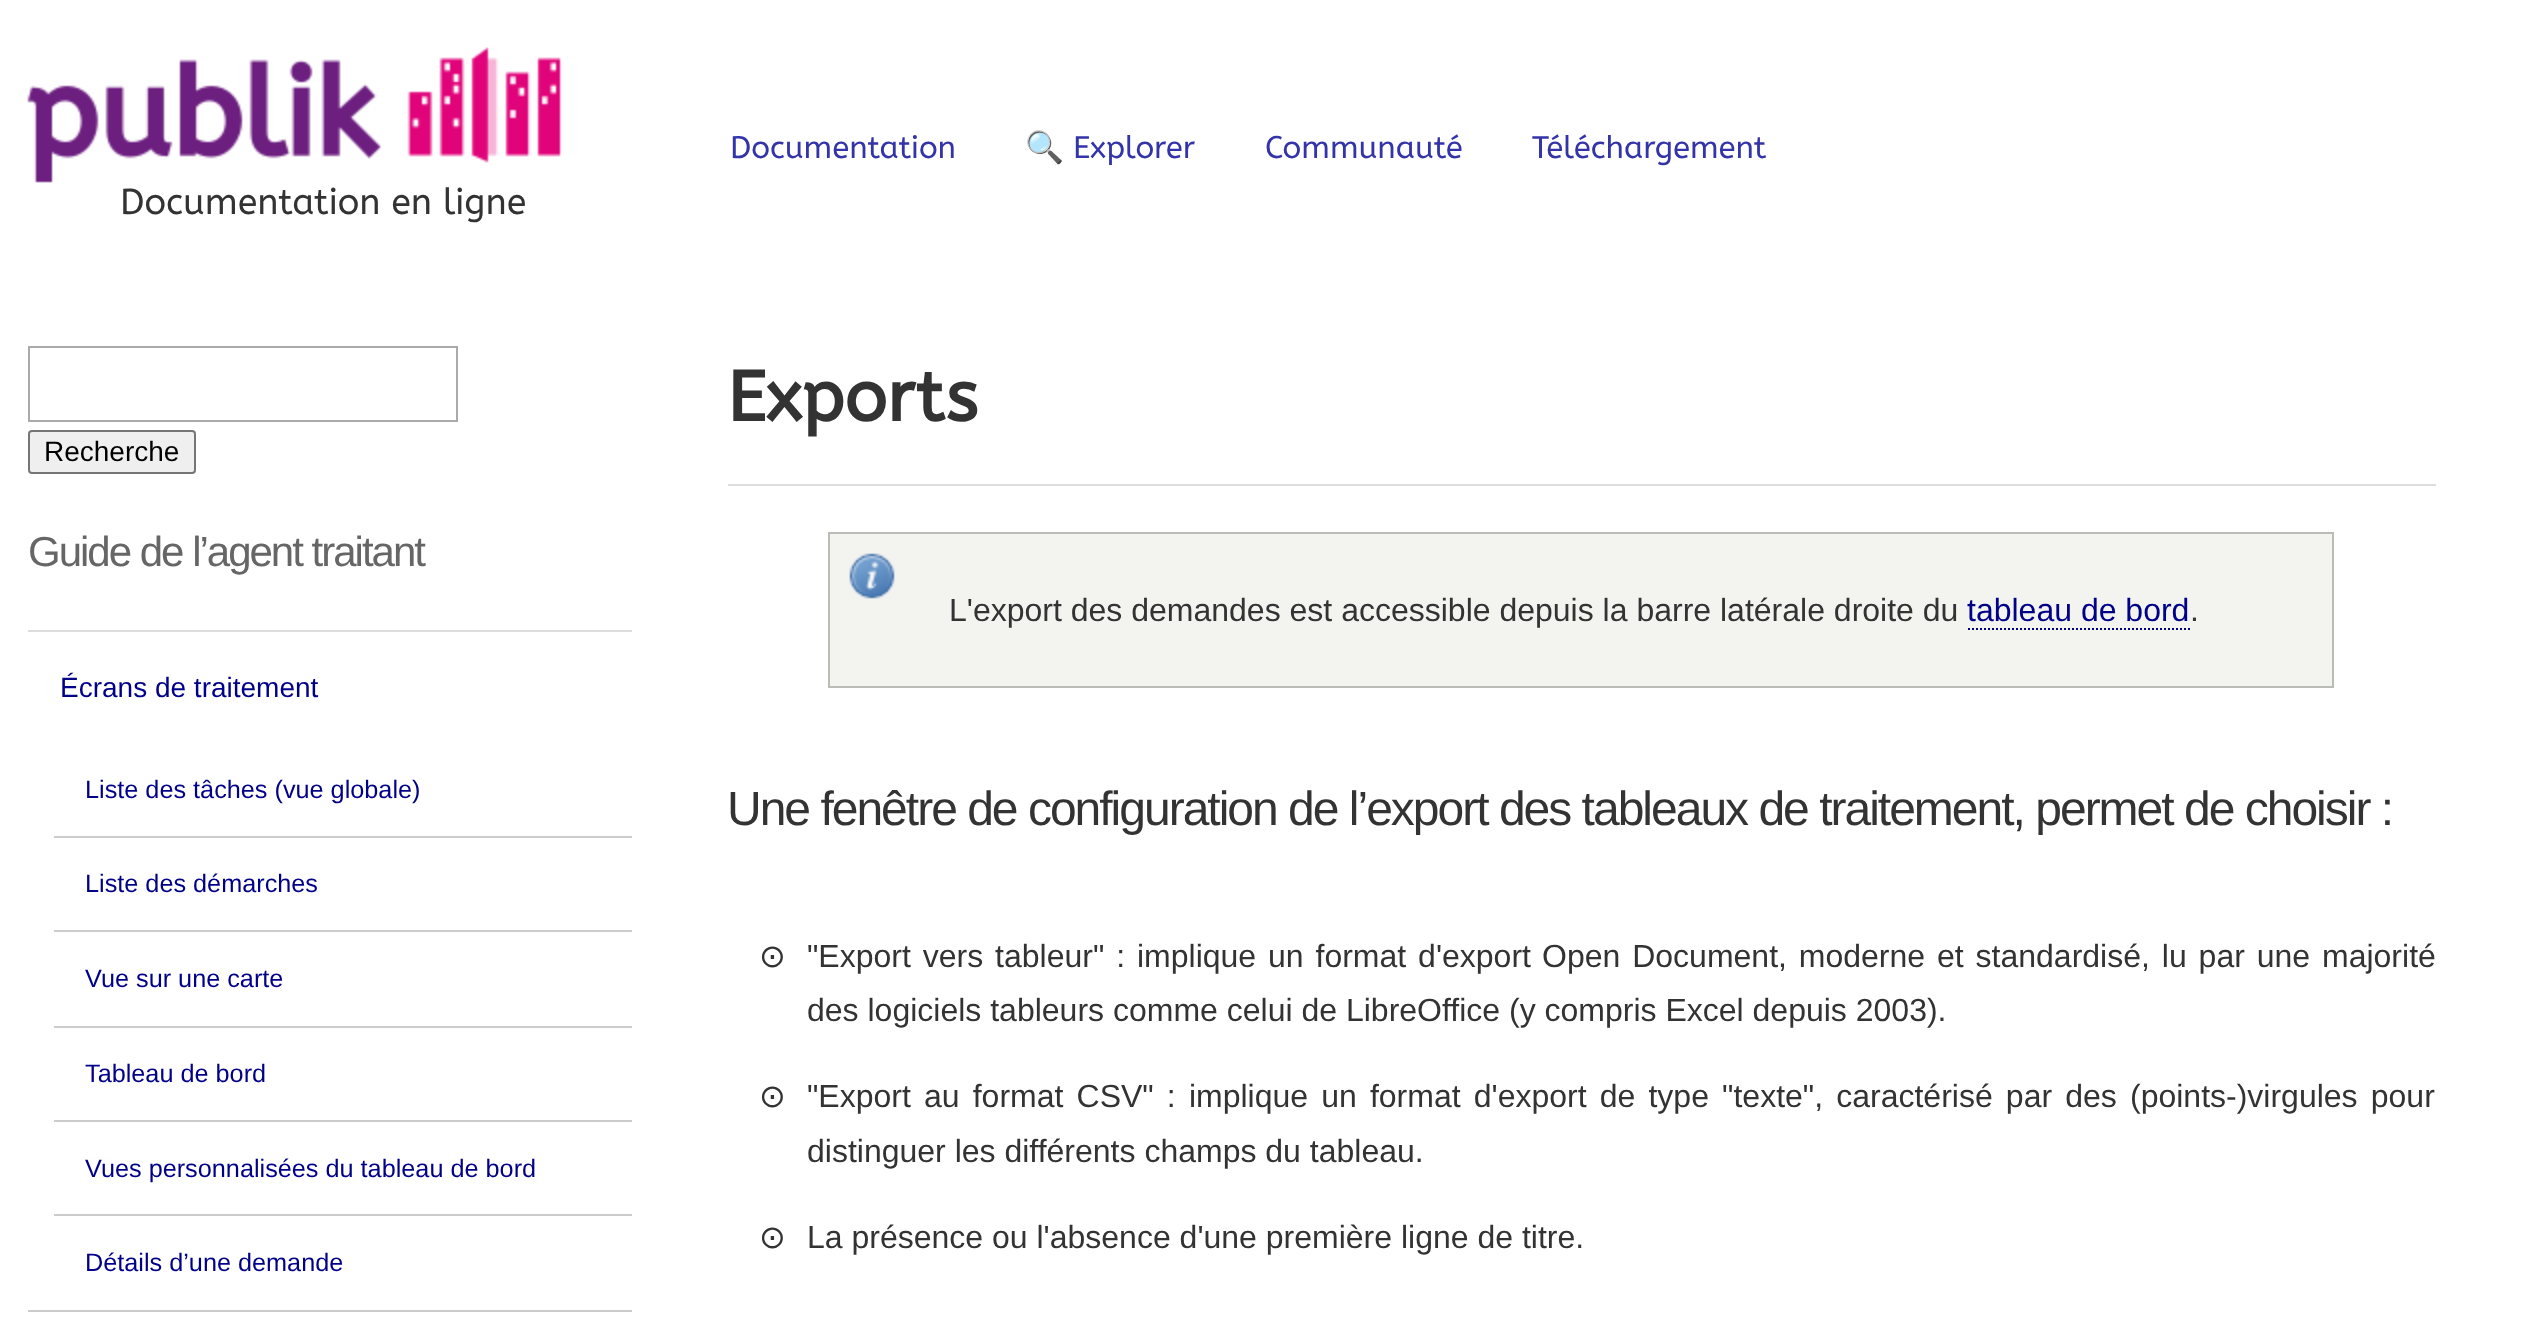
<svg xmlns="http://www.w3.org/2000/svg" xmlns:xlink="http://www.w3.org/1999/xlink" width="2530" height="1320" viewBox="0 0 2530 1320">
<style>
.cls-1{font:31.25px ABeeZee;fill:#3333aa}
.cls-2{font:31.25px Noto Color Emoji;fill:#3333aa}
.cls-3{font:36px ABeeZee;fill:#333333}
.cls-4{font:28px Liberation Sans;fill:#000000}
.cls-5{font:42px Liberation Sans;letter-spacing:-2px;fill:#666666}
.cls-6{font:28px Liberation Sans;fill:#000088}
.cls-7{font:25.25px Liberation Sans;fill:#000088}
.cls-8{font:bold 70.5px ABeeZee;fill:#333333}
.cls-9{font:32px Liberation Sans;fill:#333333}
.cls-10{font:32px Liberation Sans;fill:#000088}
.cls-11{font:48px Liberation Sans;letter-spacing:-2px;fill:#333333}
.cls-12{font:32px DejaVu Sans;fill:#333333}
</style>
<rect width="100%" height="100%" fill="#ffffff"/>
<image xlink:href="image0.png" x="27" y="47" width="535" height="136"/>
<rect fill="none" stroke="#aaaaaa" stroke-width="2" x="29" y="347" width="428" height="74"/>
<rect fill="#efefef" stroke="#767676" stroke-width="2" x="29" y="431" width="166" height="42" rx="3"/>
<rect fill="#dddddd" x="28" y="630" width="604" height="2"/>
<rect fill="#cccccc" x="28" y="1310" width="604" height="2"/>
<rect fill="#cccccc" x="54" y="836" width="578" height="2"/>
<rect fill="#cccccc" x="54" y="930" width="578" height="2"/>
<rect fill="#cccccc" x="54" y="1026" width="578" height="2"/>
<rect fill="#cccccc" x="54" y="1120" width="578" height="2"/>
<rect fill="#cccccc" x="54" y="1214" width="578" height="2"/>
<rect fill="#dddddd" x="728" y="484" width="1708" height="2"/>
<rect fill="#f3f3f0" x="830" y="534" width="1502" height="152"/>
<image xlink:href="image1.png" x="849" y="553" width="46" height="46"/>
<rect fill="none" stroke="#babdb6" stroke-width="2" x="829" y="533" width="1504" height="154"/>
<path fill="none" stroke="#000088" stroke-width="2" stroke-dasharray="2 2" d="M1968 629H2190"/>
<text class="cls-1" x="730" y="158">Documentation</text>
<text class="cls-2" x="1025" y="158">🔍</text>
<text class="cls-1" x="1073" y="158">Explorer</text>
<text class="cls-1" x="1265" y="158">Communauté</text>
<text class="cls-1" x="1532" y="158">Téléchargement</text>
<text class="cls-3" x="120" y="214">Documentation en ligne</text>
<text class="cls-4" x="44" y="461">Recherche</text>
<text class="cls-5" x="28" y="566">Guide de l’agent traitant</text>
<text class="cls-6" x="60" y="697">Écrans de traitement</text>
<text class="cls-7" x="85" y="798">Liste des tâches (vue globale)</text>
<text class="cls-7" x="85" y="892">Liste des démarches</text>
<text class="cls-7" x="85" y="987">Vue sur une carte</text>
<text class="cls-7" x="85" y="1082">Tableau de bord</text>
<text class="cls-7" x="85" y="1177">Vues personnalisées du tableau de bord</text>
<text class="cls-7" x="85" y="1271">Détails d’une demande</text>
<text class="cls-8" x="727" y="421">Exports</text>
<text class="cls-9" x="949" y="621">L'export des demandes est accessible depuis la barre latérale droite du</text>
<text class="cls-10" x="1967" y="621">tableau de bord</text>
<text class="cls-9" x="2190" y="621">.</text>
<text class="cls-11" x="727" y="825">Une fenêtre de configuration de l’export des tableaux de traitement, permet de choisir :</text>
<text class="cls-12" x="759" y="967">⊙</text>
<text class="cls-9" x="807" y="967" word-spacing="3">"Export vers tableur" : implique un format d'export</text>
<text class="cls-9" x="1542" y="967" word-spacing="3">Open Document, moderne et standardisé, lu par une majorité</text>
<text class="cls-9" x="807" y="1021">des logiciels tableurs comme celui de LibreOffice (y compris Excel depuis 2003).</text>
<text class="cls-12" x="759" y="1107">⊙</text>
<text class="cls-9"><tspan x="807" y="1107" word-spacing="4.25">"Export au format CSV" : implique un format d'export de type "texte", caractérisé par des (points-)virgules pour</tspan><tspan x="807" y="1162">distinguer les différents champs du tableau.</tspan></text>
<text class="cls-12" x="759" y="1248">⊙</text>
<text class="cls-9" x="807" y="1248">La présence ou l'absence d'une première ligne de titre.</text>
</svg>
